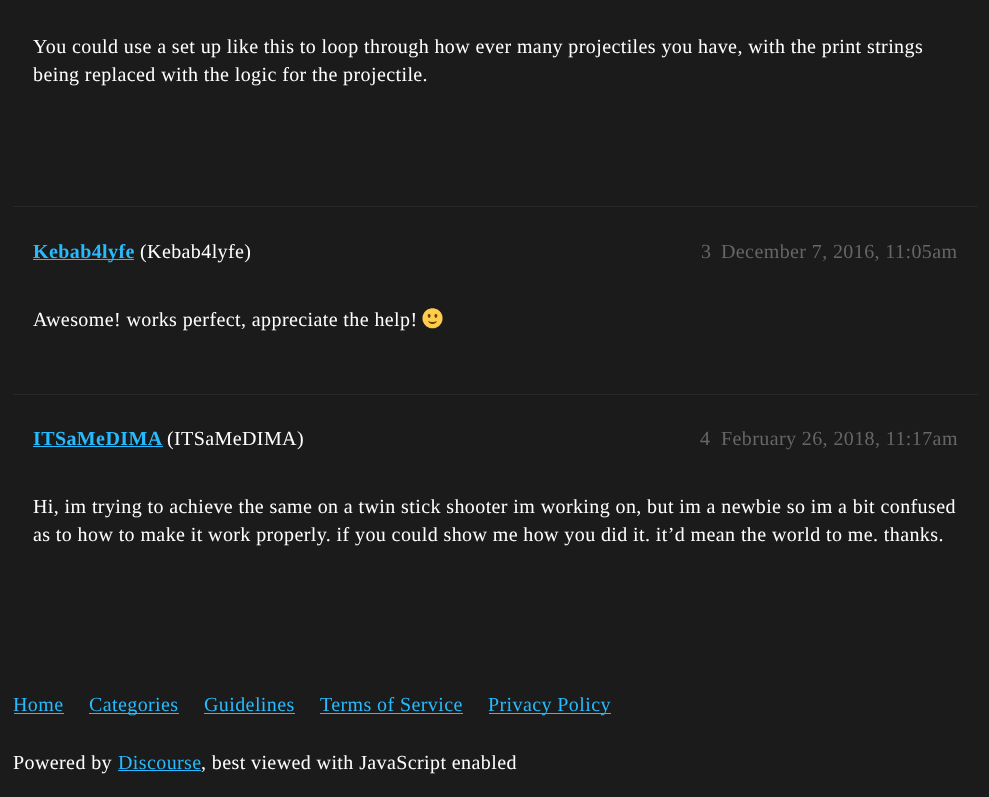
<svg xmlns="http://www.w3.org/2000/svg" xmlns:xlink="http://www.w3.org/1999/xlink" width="989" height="797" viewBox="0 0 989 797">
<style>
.cls-1{font:20px Liberation Serif;letter-spacing:0.4px;fill:#ffffff}
.cls-2{font:bold 20px Liberation Serif;letter-spacing:0.4px;fill:#26bbff}
.cls-3{font:20px Liberation Serif;letter-spacing:0.4px;fill:#666666}
.cls-4{font:20px Liberation Serif;letter-spacing:0.4px;fill:#26bbff}
</style>
<rect width="100%" height="100%" fill="#1b1b1b"/>
<rect fill="#28282c" x="13" y="206" width="965" height="1"/>
<rect fill="#26bbff" x="33" y="259" width="101" height="1"/>
<image xlink:href="image0.png" x="422" y="308" width="21" height="21"/>
<rect fill="#28282c" x="13" y="394" width="965" height="1"/>
<rect fill="#26bbff" x="33" y="446" width="130" height="1"/>
<rect fill="#26bbff" x="14" y="713" width="50" height="1"/>
<rect fill="#26bbff" x="89" y="713" width="90" height="1"/>
<rect fill="#26bbff" x="204" y="713" width="91" height="1"/>
<rect fill="#26bbff" x="320" y="713" width="143" height="1"/>
<rect fill="#26bbff" x="489" y="713" width="122" height="1"/>
<rect fill="#26bbff" x="118" y="770" width="83" height="1"/>
<text class="cls-1"><tspan x="33" y="53">You could use a set up like this to loop through how ever many projectiles you have, with the print strings</tspan><tspan x="33" y="81">being replaced with the logic for the projectile.</tspan></text>
<text class="cls-2" x="33" y="258">Kebab4lyfe</text>
<text class="cls-1" x="140" y="258">(Kebab4lyfe)</text>
<text class="cls-3" x="701" y="258">3</text>
<text class="cls-3" x="721" y="258">December 7, 2016, 11:05am</text>
<text class="cls-1" x="33" y="326">Awesome! works perfect, appreciate the help!</text>
<text class="cls-2" x="33" y="445">ITSaMeDIMA</text>
<text class="cls-1" x="167" y="445">(ITSaMeDIMA)</text>
<text class="cls-3" x="700" y="445">4</text>
<text class="cls-3" x="721" y="445">February 26, 2018, 11:17am</text>
<text class="cls-1"><tspan x="33" y="513">Hi, im trying to achieve the same on a twin stick shooter im working on, but im a newbie so im a bit confused</tspan><tspan x="33" y="541">as to how to make it work properly. if you could show me how you did it. it’d mean the world to me. thanks.</tspan></text>
<text class="cls-4" x="13" y="711">Home</text>
<text class="cls-4" x="89" y="711">Categories</text>
<text class="cls-4" x="204" y="711">Guidelines</text>
<text class="cls-4" x="320" y="711">Terms of Service</text>
<text class="cls-4" x="488" y="711">Privacy Policy</text>
<text class="cls-1" x="13" y="769">Powered by</text>
<text class="cls-4" x="118" y="769">Discourse</text>
<text class="cls-1" x="201" y="769">, best viewed with JavaScript enabled</text>
</svg>
